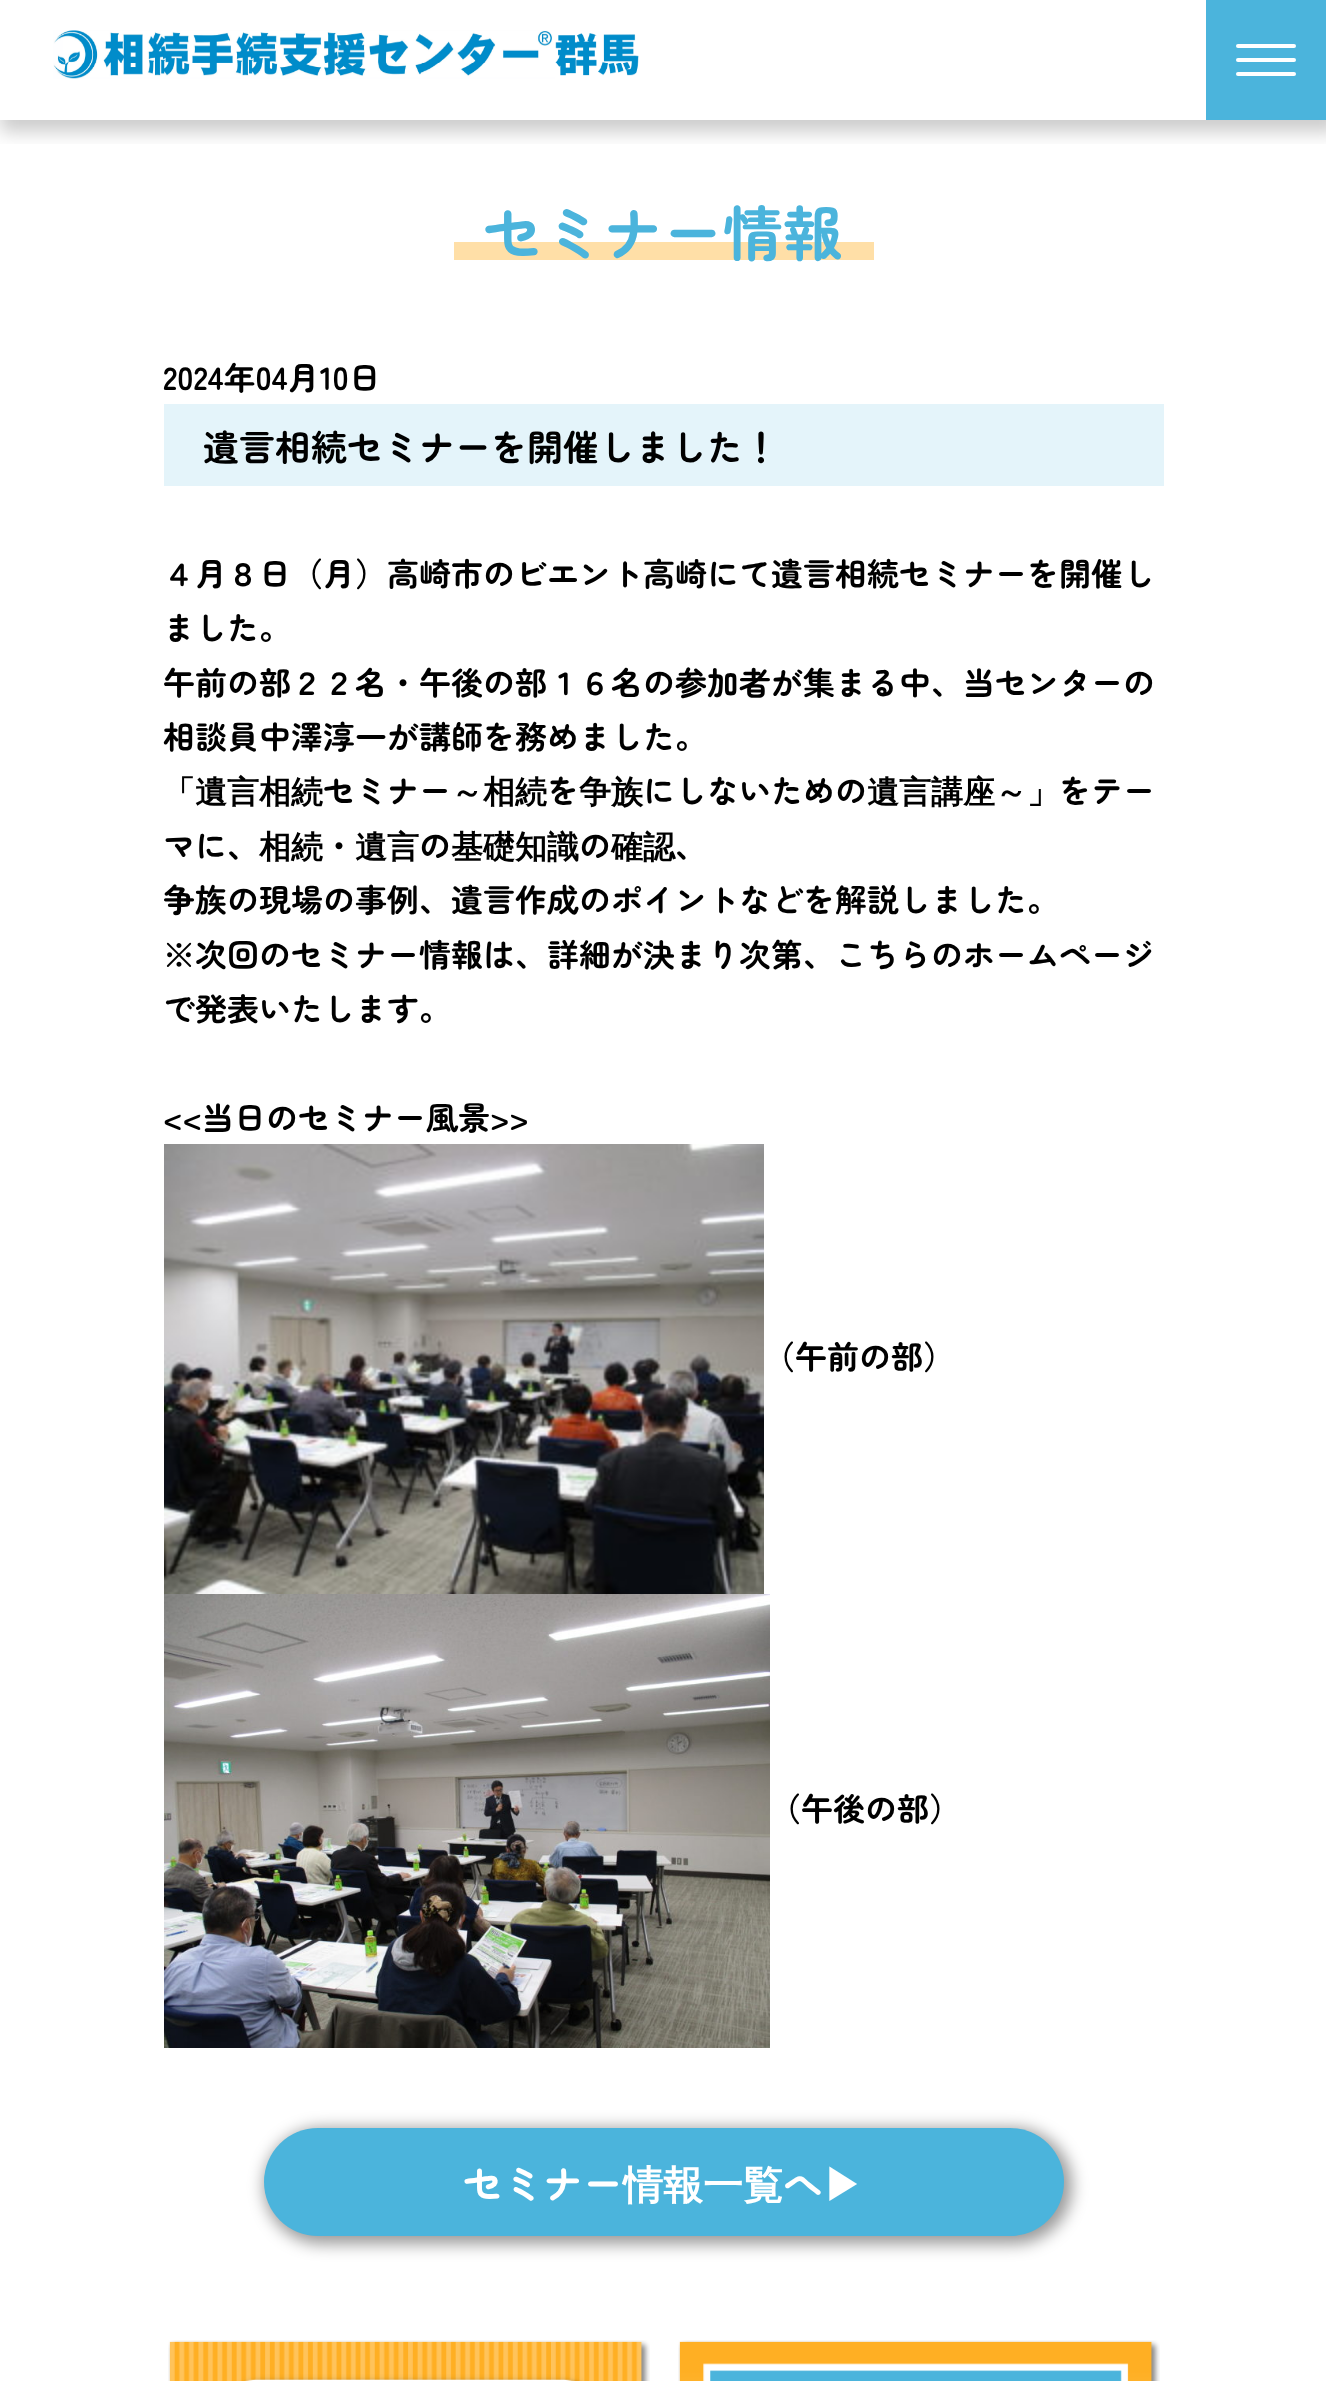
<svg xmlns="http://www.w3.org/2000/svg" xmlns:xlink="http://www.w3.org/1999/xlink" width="1326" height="2381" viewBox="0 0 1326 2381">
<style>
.cls-1{font:bold 60px Zen Maru Gothic;fill:#4bb4dc}
.cls-2{font:bold 32px Zen Maru Gothic;fill:#000000}
.cls-3{font:bold 36px Zen Maru Gothic;fill:#000000}
.cls-4{font:bold 32px WenQuanYi Zen Hei;fill:#000000}
.cls-5{font:bold 40px Zen Maru Gothic;fill:#ffffff}
.cls-6{font:bold 40px WenQuanYi Zen Hei;fill:#ffffff}
</style>
<defs>
<clipPath id="clip1"><rect x="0" y="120" width="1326" height="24"/></clipPath>
</defs>
<rect width="100%" height="100%" fill="#ffffff"/>
<g clip-path="url(#clip1)">
<rect fill="#000000" fill-opacity="0.2" filter="blur(9px)" x="0" y="0" width="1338" height="132"/>
</g>
<image xlink:href="image0.png" x="53" y="30" width="586" height="49"/>
<rect fill="#4bb4dc" x="1206" y="0" width="120" height="120"/>
<rect fill="#ffffff" x="1236" y="44" width="60" height="4" rx="2"/>
<rect fill="#ffffff" x="1236" y="58" width="60" height="4" rx="2"/>
<rect fill="#ffffff" x="1236" y="72" width="60" height="4" rx="2"/>
<rect fill="#ffdfa7" x="454" y="242" width="420" height="18"/>
<rect fill="#e4f4fa" x="164" y="404" width="1000" height="82"/>
<image xlink:href="image1.png" x="164" y="1144" width="600" height="450"/>
<image xlink:href="image2.png" x="164" y="1594" width="606" height="454"/>
<rect fill="#000000" fill-opacity="0.4" filter="blur(8px)" x="264" y="2128" width="808" height="116" rx="58"/>
<rect fill="#4bb4dc" x="264" y="2128" width="800" height="108" rx="54"/>
<image xlink:href="image3.png" x="168" y="2340" width="482" height="41"/>
<image xlink:href="image4.png" x="678" y="2340" width="482" height="41"/>
<text class="cls-1" x="483" y="256">セミナー情報</text>
<text class="cls-2" x="163" y="390">2024年04月10日</text>
<text class="cls-3" x="203" y="461">遺言相続セミナーを開催しました！</text>
<text class="cls-2"><tspan x="163" y="586">４月８日（月）高崎市のビエント高崎にて遺言相続セミナーを開催し</tspan><tspan x="163" y="640">ました。</tspan><tspan x="163" y="695">午前の部２２名・午後の部１６名の参加者が集まる中、当センターの</tspan><tspan x="163" y="749">相談員中澤淳一が講師を務めました。</tspan></text>
<text class="cls-4" x="163" y="803">「遺言相続</text>
<text class="cls-2" x="323" y="803">セミナー</text>
<text class="cls-4" x="451" y="803">～相続</text>
<text class="cls-2" x="547" y="803">を</text>
<text class="cls-4" x="579" y="803">争族</text>
<text class="cls-2" x="643" y="803">にしないための</text>
<text class="cls-4" x="867" y="803">遺言講座～」</text>
<text class="cls-2" x="1059" y="803">をテー</text>
<text class="cls-2" x="163" y="858">マに、</text>
<text class="cls-4" x="259" y="858">相続</text>
<text class="cls-2" x="323" y="858">・</text>
<text class="cls-4" x="355" y="858">遺言</text>
<text class="cls-2" x="419" y="858">の</text>
<text class="cls-4" x="451" y="858">基礎知識</text>
<text class="cls-2" x="579" y="858">の</text>
<text class="cls-4" x="611" y="858">確認</text>
<text class="cls-2" x="675" y="858">、</text>
<text class="cls-2"><tspan x="163" y="912">争族の現場の事例、遺言作成のポイントなどを解説しました。</tspan><tspan x="163" y="967">※次回のセミナー情報は、詳細が決まり次第、こちらのホームページ</tspan><tspan x="163" y="1021">で発表いたします。</tspan></text>
<text class="cls-2" x="163" y="1130">&lt;&lt;当日のセミナー風景&gt;&gt;</text>
<text class="cls-2" x="763" y="1369">（午前の部）</text>
<text class="cls-2" x="769" y="1821">（午後の部）</text>
<text class="cls-5" x="463" y="2199">セミナー</text>
<text class="cls-6" x="623" y="2199">情報一覧</text>
<text class="cls-5" x="783" y="2199">へ</text>
<text class="cls-6" x="823" y="2199">▶︎</text>
</svg>
